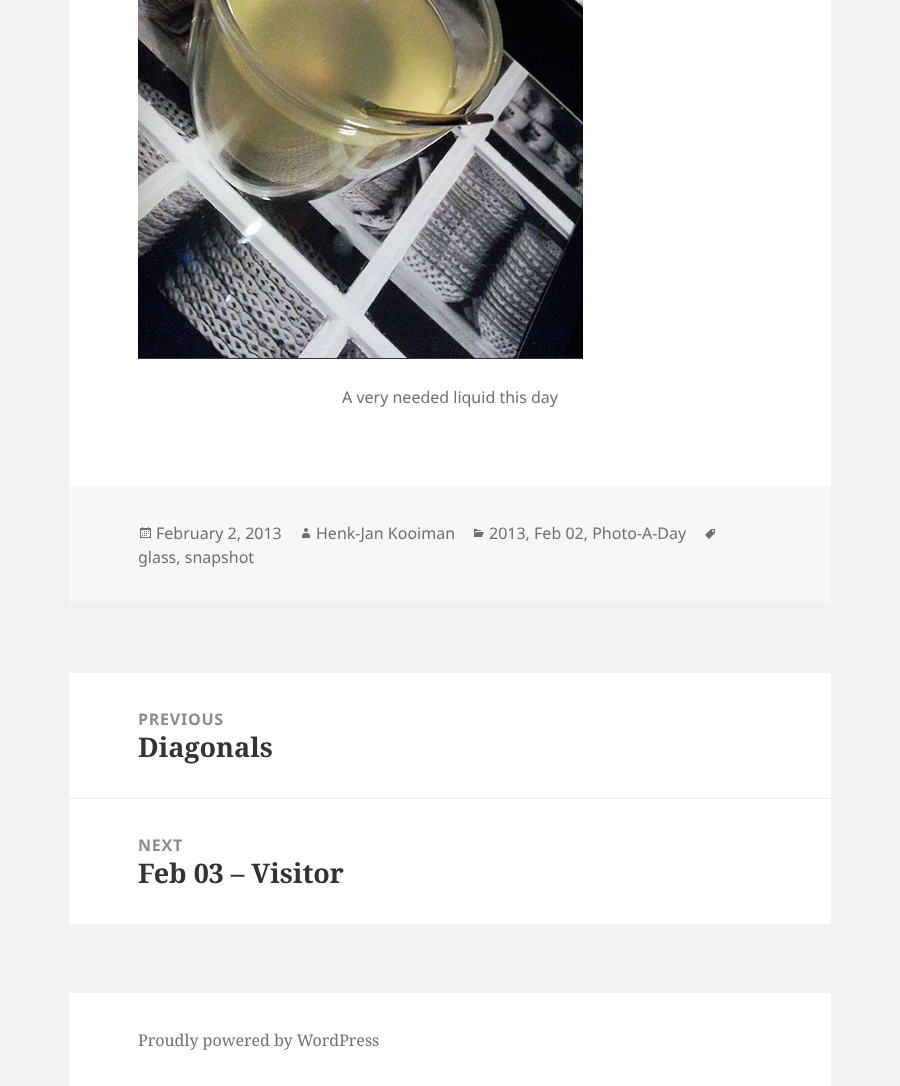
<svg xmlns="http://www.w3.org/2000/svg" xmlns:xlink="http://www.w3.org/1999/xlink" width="900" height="1086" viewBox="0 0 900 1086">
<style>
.cls-1{font:16px Noto Sans;fill:#707070}
.cls-2{font:bold 16px Noto Sans;letter-spacing:0.75px;fill:#8d8d8d}
.cls-3{font:bold 27px Noto Serif;fill:#333333}
.cls-4{font:16px Noto Serif;fill:#707070}
</style>
<rect width="100%" height="100%" fill="#f1f1f1"/>
<rect fill="#ffffff" x="69" y="0" width="762" height="486"/>
<rect fill="#333333" x="138" y="358" width="445" height="1"/>
<image xlink:href="image0.png" x="138" y="0" width="445" height="358"/>
<rect fill="#f7f7f7" x="69" y="486" width="762" height="117"/>
<image xlink:href="image1.png" x="140" y="527" width="11" height="11"/>
<image xlink:href="image2.png" x="302" y="528" width="8" height="10"/>
<image xlink:href="image3.png" x="474" y="529" width="10" height="8"/>
<image xlink:href="image4.png" x="705" y="529" width="10" height="10"/>
<rect fill="#ffffff" x="69" y="673" width="762" height="251"/>
<rect fill="#ebebeb" x="69" y="798" width="762" height="1"/>
<rect fill="#ffffff" x="69" y="993" width="762" height="93"/>
<text class="cls-1" x="342" y="403">A very needed liquid this day</text>
<text class="cls-1" x="156" y="539">February 2, 2013</text>
<text class="cls-1" x="316" y="539">Henk-Jan Kooiman</text>
<text class="cls-1" x="489" y="539">2013, Feb 02, Photo-A-Day</text>
<text class="cls-1" x="138" y="563">glass, snapshot</text>
<text class="cls-2" x="138" y="725">PREVIOUS</text>
<text class="cls-3" x="138" y="757">Diagonals</text>
<text class="cls-2" x="138" y="851">NEXT</text>
<text class="cls-3" x="138" y="883">Feb 03 – Visitor</text>
<text class="cls-4" x="138" y="1046">Proudly powered by WordPress</text>
</svg>
